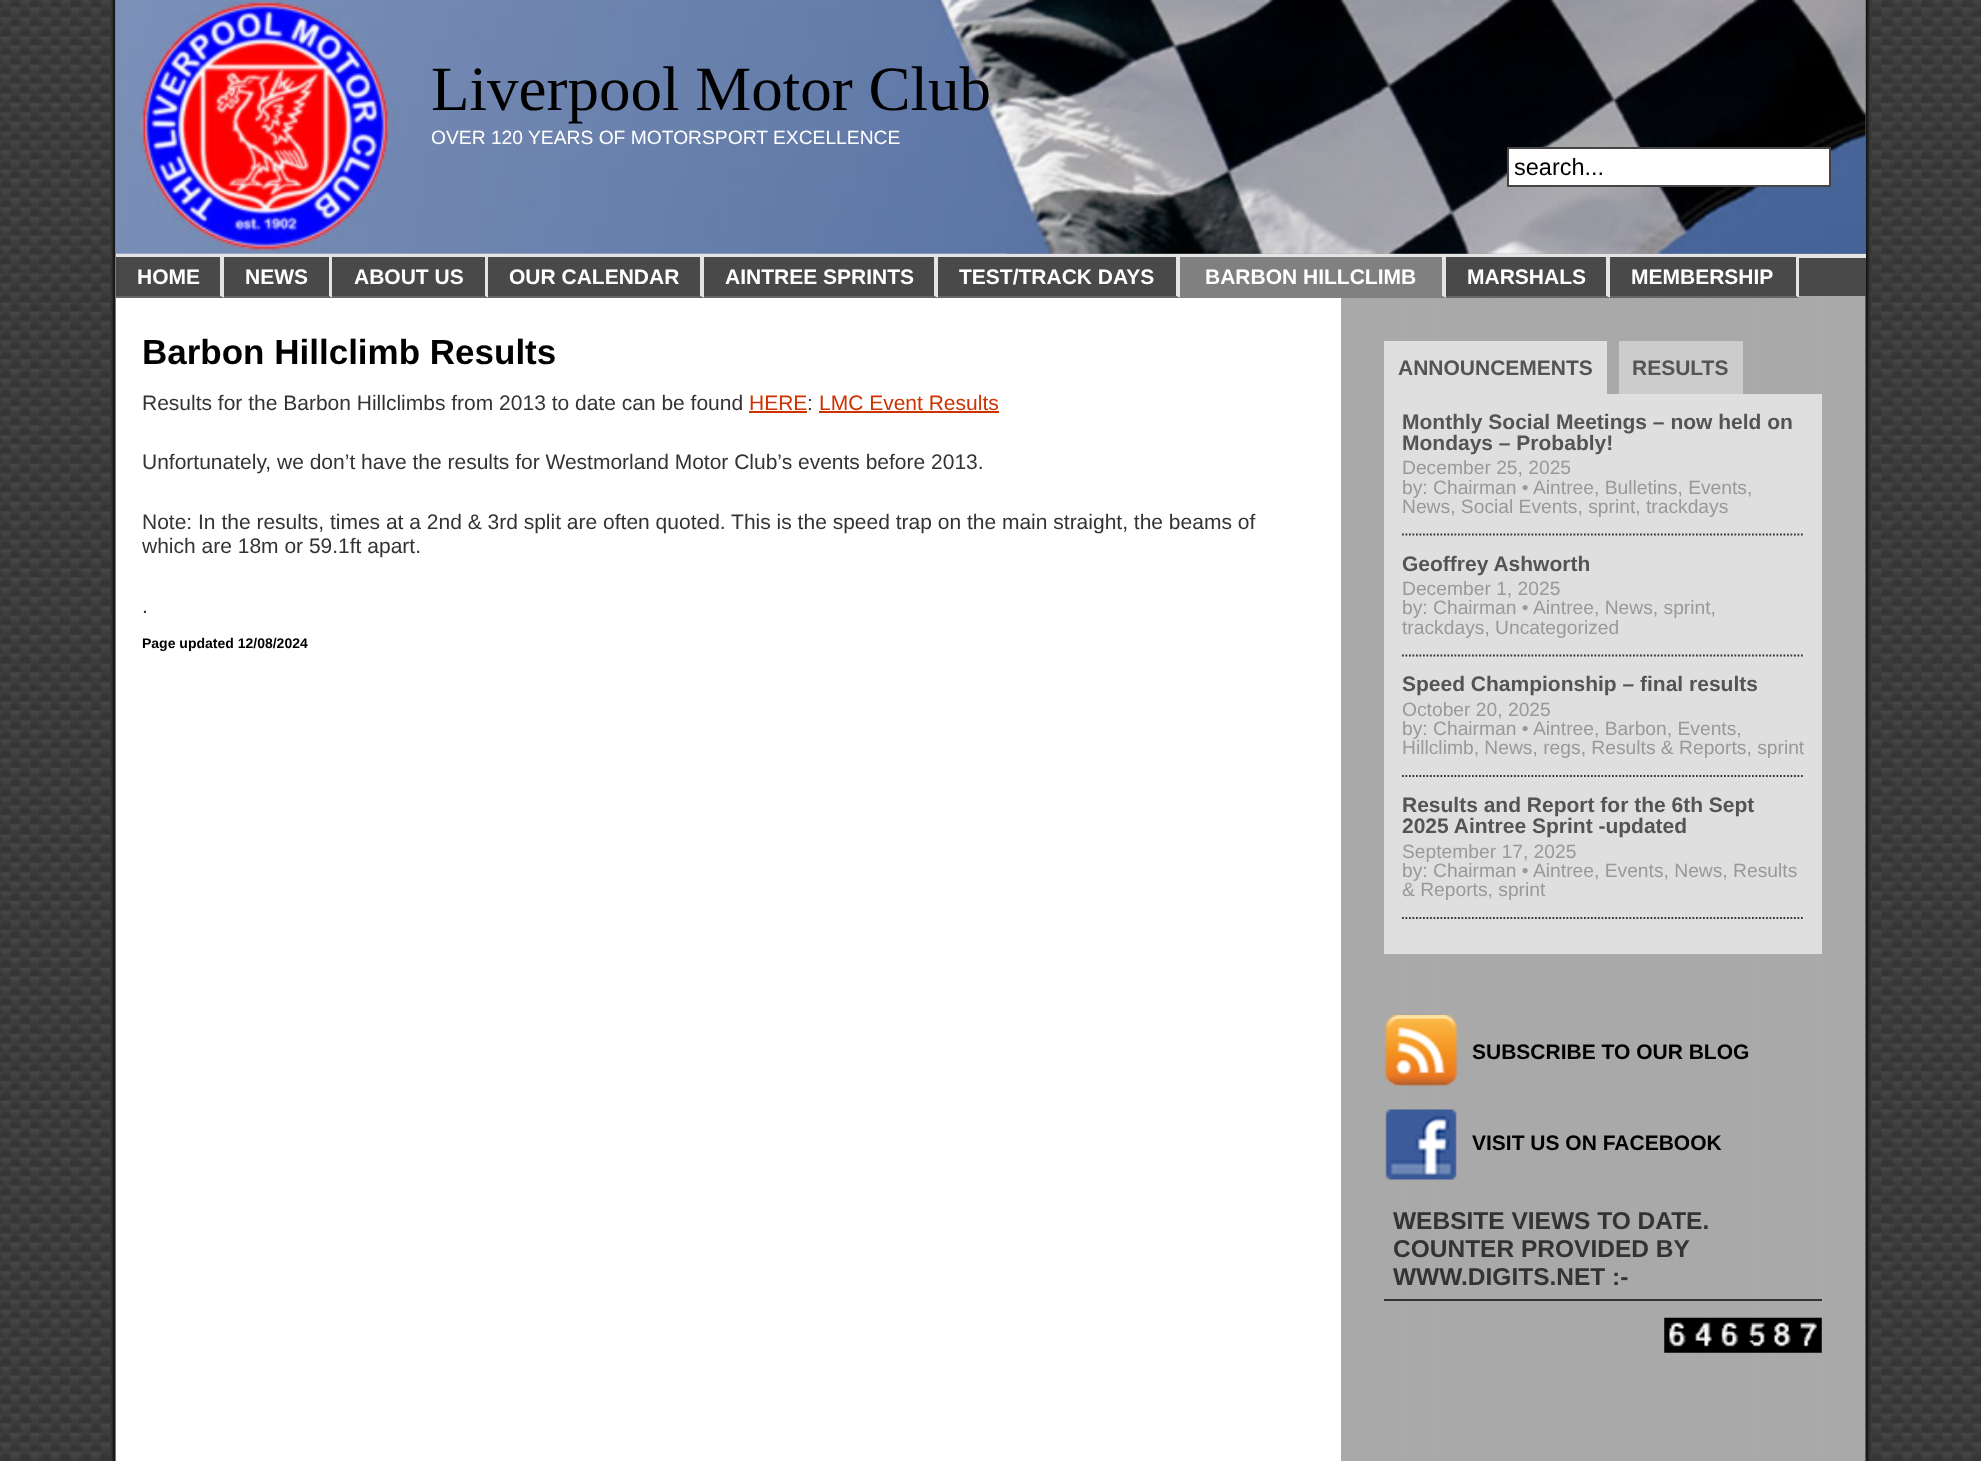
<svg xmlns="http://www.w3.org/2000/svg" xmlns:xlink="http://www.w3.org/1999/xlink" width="1981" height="1461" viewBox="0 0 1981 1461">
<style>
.cls-1{font:63px Liberation Serif;fill:#000000}
.cls-2{font:19.25px Liberation Sans;fill:#ffffff}
.cls-3{font:23.5px Liberation Sans;fill:#000000}
.cls-4{font:bold 21px Liberation Sans;fill:#ffffff}
.cls-5{font:bold 35px Liberation Sans;fill:#000000}
.cls-6{font:21px Liberation Sans;fill:#333333}
.cls-7{font:21px Liberation Sans;fill:#cc3300}
.cls-8{font:bold 14px Liberation Sans;fill:#000000}
.cls-9{font:bold 21px Liberation Sans;fill:#545454}
.cls-10{font:19.25px Liberation Sans;fill:#999999}
.cls-11{font:bold 21px Liberation Sans;fill:#000000}
.cls-12{font:bold 24.5px Liberation Sans;fill:#333333}
</style>
<rect width="100%" height="100%" fill="#ffffff"/>
<image xlink:href="image0.png" x="0" y="0" width="1981" height="1461"/>
<image xlink:href="image1.png" x="110" y="0" width="1761" height="1461"/>
<image xlink:href="image2.png" x="115" y="0" width="1751" height="254"/>
<rect fill="#ffffff" stroke="#454545" stroke-width="2" x="1508" y="148" width="322" height="38"/>
<rect fill="#494949" x="1799" y="258" width="67" height="38"/>
<rect fill="#e4e4e4" x="116" y="254" width="1750" height="4"/>
<rect fill="#494949" x="116" y="257" width="1064" height="41"/>
<path fill="#e4e4e4" d="M224 257V298L220 296V257Z"/>
<path fill="#666666" d="M224 298H116V296H220Z"/>
<path fill="#e4e4e4" d="M332 257V298L329 296V257Z"/>
<path fill="#666666" d="M332 298H224V296H329Z"/>
<path fill="#e4e4e4" d="M488 257V298L485 296V257Z"/>
<path fill="#666666" d="M488 298H332V296H485Z"/>
<path fill="#e4e4e4" d="M704 257V298L700 296V257Z"/>
<path fill="#666666" d="M704 298H488V296H700Z"/>
<path fill="#e4e4e4" d="M938 257V298L934 296V257Z"/>
<path fill="#666666" d="M938 298H704V296H934Z"/>
<path fill="#e4e4e4" d="M1180 257V298L1176 296V257Z"/>
<path fill="#666666" d="M1180 298H938V296H1176Z"/>
<rect fill="#808080" x="1180" y="257" width="266" height="41"/>
<path fill="#e4e4e4" d="M1446 257V298L1442 296V257Z"/>
<path fill="#808080" d="M1446 298H1180V296H1442Z"/>
<rect fill="#494949" x="1446" y="257" width="353" height="41"/>
<path fill="#e4e4e4" d="M1610 257V298L1606 296V257Z"/>
<path fill="#666666" d="M1610 298H1446V296H1606Z"/>
<path fill="#e4e4e4" d="M1799 257V298L1796 296V257Z"/>
<path fill="#666666" d="M1799 298H1610V296H1796Z"/>
<rect fill="#ffffff" x="1005" y="298" width="336" height="1163"/>
<rect fill="#cc3300" x="749" y="411" width="58" height="2"/>
<rect fill="#cc3300" x="819" y="411" width="180" height="2"/>
<rect fill="#dfdfdf" x="1384" y="341" width="223" height="53"/>
<rect fill="#cccccc" x="1619" y="341" width="124" height="53"/>
<rect fill="#dfdfdf" x="1384" y="394" width="438" height="560"/>
<path fill="none" stroke="#333333" stroke-width="1.8" stroke-dasharray="1.75 1.75" d="M1402 534.5H1804"/>
<path fill="none" stroke="#333333" stroke-width="1.8" stroke-dasharray="1.75 1.75" d="M1402 655.5H1804"/>
<path fill="none" stroke="#333333" stroke-width="1.8" stroke-dasharray="1.75 1.75" d="M1402 776H1804"/>
<path fill="none" stroke="#333333" stroke-width="1.8" stroke-dasharray="1.75 1.75" d="M1402 918H1804"/>
<image xlink:href="image3.png" x="1384" y="1015" width="74" height="72"/>
<image xlink:href="image4.png" x="1385" y="1109" width="72" height="71"/>
<rect fill="#333333" x="1384" y="1299" width="438" height="2"/>
<image xlink:href="image5.png" x="1664" y="1317" width="158" height="36"/>
<text class="cls-1" x="431" y="110">Liverpool Motor Club</text>
<text class="cls-2" x="431" y="144">OVER 120 YEARS OF MOTORSPORT EXCELLENCE</text>
<text class="cls-3" x="1514" y="175">search...</text>
<text class="cls-4" x="137" y="284">HOME</text>
<text class="cls-4" x="245" y="284">NEWS</text>
<text class="cls-4" x="354" y="284">ABOUT US</text>
<text class="cls-4" x="509" y="284">OUR CALENDAR</text>
<text class="cls-4" x="725" y="284">AINTREE SPRINTS</text>
<text class="cls-4" x="959" y="284">TEST/TRACK DAYS</text>
<text class="cls-4" x="1205" y="284">BARBON HILLCLIMB</text>
<text class="cls-4" x="1467" y="284">MARSHALS</text>
<text class="cls-4" x="1631" y="284">MEMBERSHIP</text>
<text class="cls-5" x="142" y="364">Barbon Hillclimb Results</text>
<text class="cls-6" x="142" y="410">Results for the Barbon Hillclimbs from 2013 to date can be found</text>
<text class="cls-7" x="749" y="410">HERE</text>
<text class="cls-6" x="807" y="410">:</text>
<text class="cls-7" x="819" y="410">LMC Event Results</text>
<text class="cls-6" x="142" y="469">Unfortunately, we don’t have the results for Westmorland Motor Club’s events before 2013.</text>
<text class="cls-6"><tspan x="142" y="529">Note: In the results, times at a 2nd &amp; 3rd split are often quoted. This is the speed trap on the main straight, the beams of</tspan><tspan x="142" y="553">which are 18m or 59.1ft apart.</tspan></text>
<text class="cls-6" x="142" y="613">.</text>
<text class="cls-8" x="142" y="648">Page updated 12/08/2024</text>
<text class="cls-9" x="1398" y="375">ANNOUNCEMENTS</text>
<text class="cls-9" x="1632" y="375">RESULTS</text>
<text class="cls-9"><tspan x="1402" y="429">Monthly Social Meetings – now held on</tspan><tspan x="1402" y="450">Mondays – Probably!</tspan></text>
<text class="cls-10"><tspan x="1402" y="474">December 25, 2025</tspan><tspan x="1402" y="494">by: Chairman •</tspan></text>
<text class="cls-10" x="1533" y="494">Aintree, Bulletins, Events,</text>
<text class="cls-10" x="1402" y="513">News, Social Events, sprint, trackdays</text>
<text class="cls-9" x="1402" y="571">Geoffrey Ashworth</text>
<text class="cls-10"><tspan x="1402" y="595">December 1, 2025</tspan><tspan x="1402" y="614">by: Chairman •</tspan></text>
<text class="cls-10" x="1533" y="614">Aintree, News, sprint,</text>
<text class="cls-10" x="1402" y="634">trackdays, Uncategorized</text>
<text class="cls-9" x="1402" y="691">Speed Championship – final results</text>
<text class="cls-10"><tspan x="1402" y="716">October 20, 2025</tspan><tspan x="1402" y="735">by: Chairman •</tspan></text>
<text class="cls-10" x="1533" y="735">Aintree, Barbon, Events,</text>
<text class="cls-10" x="1402" y="754">Hillclimb, News, regs, Results &amp; Reports, sprint</text>
<text class="cls-9"><tspan x="1402" y="812">Results and Report for the 6th Sept</tspan><tspan x="1402" y="833">2025 Aintree Sprint -updated</tspan></text>
<text class="cls-10"><tspan x="1402" y="858">September 17, 2025</tspan><tspan x="1402" y="877">by: Chairman •</tspan></text>
<text class="cls-10" x="1533" y="877">Aintree, Events, News, Results</text>
<text class="cls-10" x="1402" y="896">&amp; Reports, sprint</text>
<text class="cls-11" x="1472" y="1059">SUBSCRIBE TO OUR BLOG</text>
<text class="cls-11" x="1472" y="1150">VISIT US ON FACEBOOK</text>
<text class="cls-12"><tspan x="1393" y="1229">WEBSITE VIEWS TO DATE.</tspan><tspan x="1393" y="1257">COUNTER PROVIDED BY</tspan><tspan x="1393" y="1285">WWW.DIGITS.NET :-</tspan></text>
</svg>
